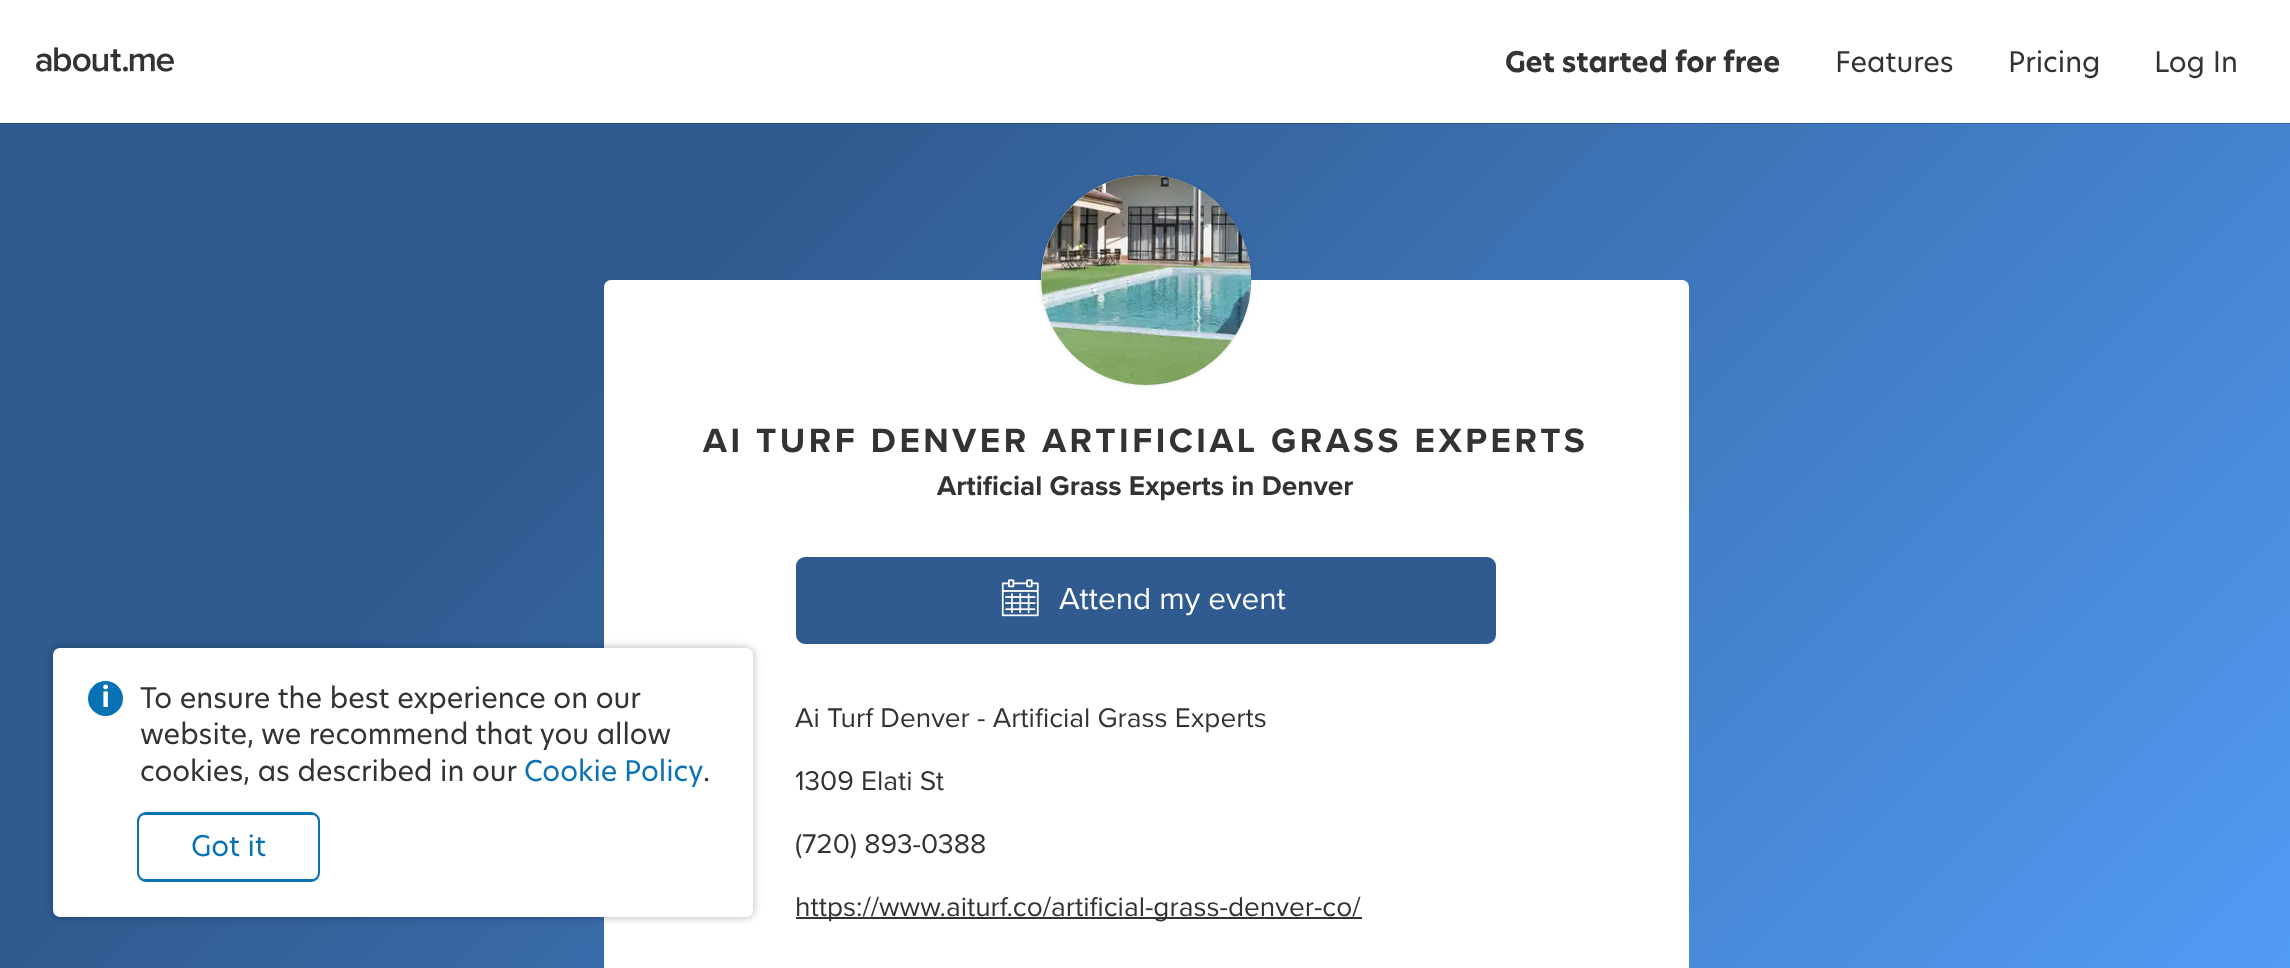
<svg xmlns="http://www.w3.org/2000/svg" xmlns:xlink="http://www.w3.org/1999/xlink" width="2290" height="968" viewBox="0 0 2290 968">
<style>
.cls-1{font:28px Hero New;fill:#333333}
.cls-2{font:28px Hero New;fill:#0872b4}
.cls-3{font:bold 28px Hero New;fill:#333333}
.cls-4{font:bold 35px Proxima Nova;letter-spacing:3.5px;fill:#333333}
.cls-5{font:bold 28px Proxima Nova;fill:#333333}
.cls-6{font:31.5px Proxima Nova;fill:#ffffff}
.cls-7{font:28px Proxima Nova;fill:#333333}
</style>
<defs>
<linearGradient id="g1" gradientUnits="userSpaceOnUse" x1="330" y1="-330" x2="1960" y2="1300"><stop offset="0" stop-color="#305b90"/><stop offset="0.3" stop-color="#305b90"/><stop offset="1" stop-color="#529bf5"/></linearGradient>
</defs>
<rect width="100%" height="100%" fill="#ffffff"/>
<rect fill="url(#g1)" x="0" y="123" width="2290" height="845"/>
<rect fill="#ffffff" x="604" y="280" width="1085" height="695" rx="7"/>
<rect fill="#000000" fill-opacity="0.3" filter="blur(4.5px)" x="53" y="648" width="700" height="269" rx="7"/>
<rect fill="#ffffff" x="53" y="648" width="700" height="269" rx="7"/>
<circle fill="#0872b4" cx="105.5" cy="698.5" r="17.5"/>
<image xlink:href="image0.png" x="103" y="684" width="5" height="23"/>
<rect fill="none" stroke="#0872b4" x="138.5" y="814.5" width="180" height="65" rx="6.5"/>
<rect fill="none" stroke="#0872b4" stroke-width="2" x="138" y="813" width="181" height="68" rx="8"/>
<path fill="#000000" fill-opacity="0.2" d="M0 122V124H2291V2V122Z"/>
<rect fill="#ffffff" x="0" y="122" width="2290" height="1"/>
<image xlink:href="image1.png" x="36" y="47" width="138" height="25"/>
<rect fill="#000000" fill-opacity="0.1" filter="blur(2px)" x="1041" y="175" width="210" height="210" rx="105"/>
<circle fill="#eeeeee" cx="1146" cy="280" r="105"/>
<image xlink:href="image2.png" x="1041" y="175" width="211" height="210"/>
<rect fill="#305b90" stroke="#305b90" stroke-width="2" x="797" y="558" width="698" height="85" rx="8"/>
<image xlink:href="image3.png" x="1001" y="579" width="38" height="38"/>
<rect fill="#333333" x="796" y="917" width="566" height="2"/>
<text class="cls-1"><tspan x="140" y="708">To ensure the best experience on our</tspan><tspan x="140" y="744">website, we recommend that you allow</tspan><tspan x="140" y="781">cookies, as described in our</tspan></text>
<text class="cls-2" x="524" y="781" word-spacing="-1">Cookie Policy</text>
<text class="cls-1" x="703" y="781">.</text>
<text class="cls-2" x="191" y="856">Got it</text>
<text class="cls-3" x="1505" y="72">Get started for free</text>
<text class="cls-1" x="1835" y="72">Features</text>
<text class="cls-1" x="2008" y="72">Pricing</text>
<text class="cls-1" x="2154" y="72">Log In</text>
<text class="cls-4" x="703" y="452">AI TURF DENVER ARTIFICIAL GRASS EXPERTS</text>
<text class="cls-5" x="937" y="495">Artificial Grass Experts in Denver</text>
<text class="cls-6" x="1059" y="609">Attend my event</text>
<text class="cls-7" x="795" y="727">Ai Turf Denver - Artificial Grass Experts</text>
<text class="cls-7" x="795" y="790">1309 Elati St</text>
<text class="cls-7" x="795" y="853">(720) 893-0388</text>
<text class="cls-7" x="795" y="916">https://www.aiturf.co/artificial-grass-denver-co/</text>
</svg>
